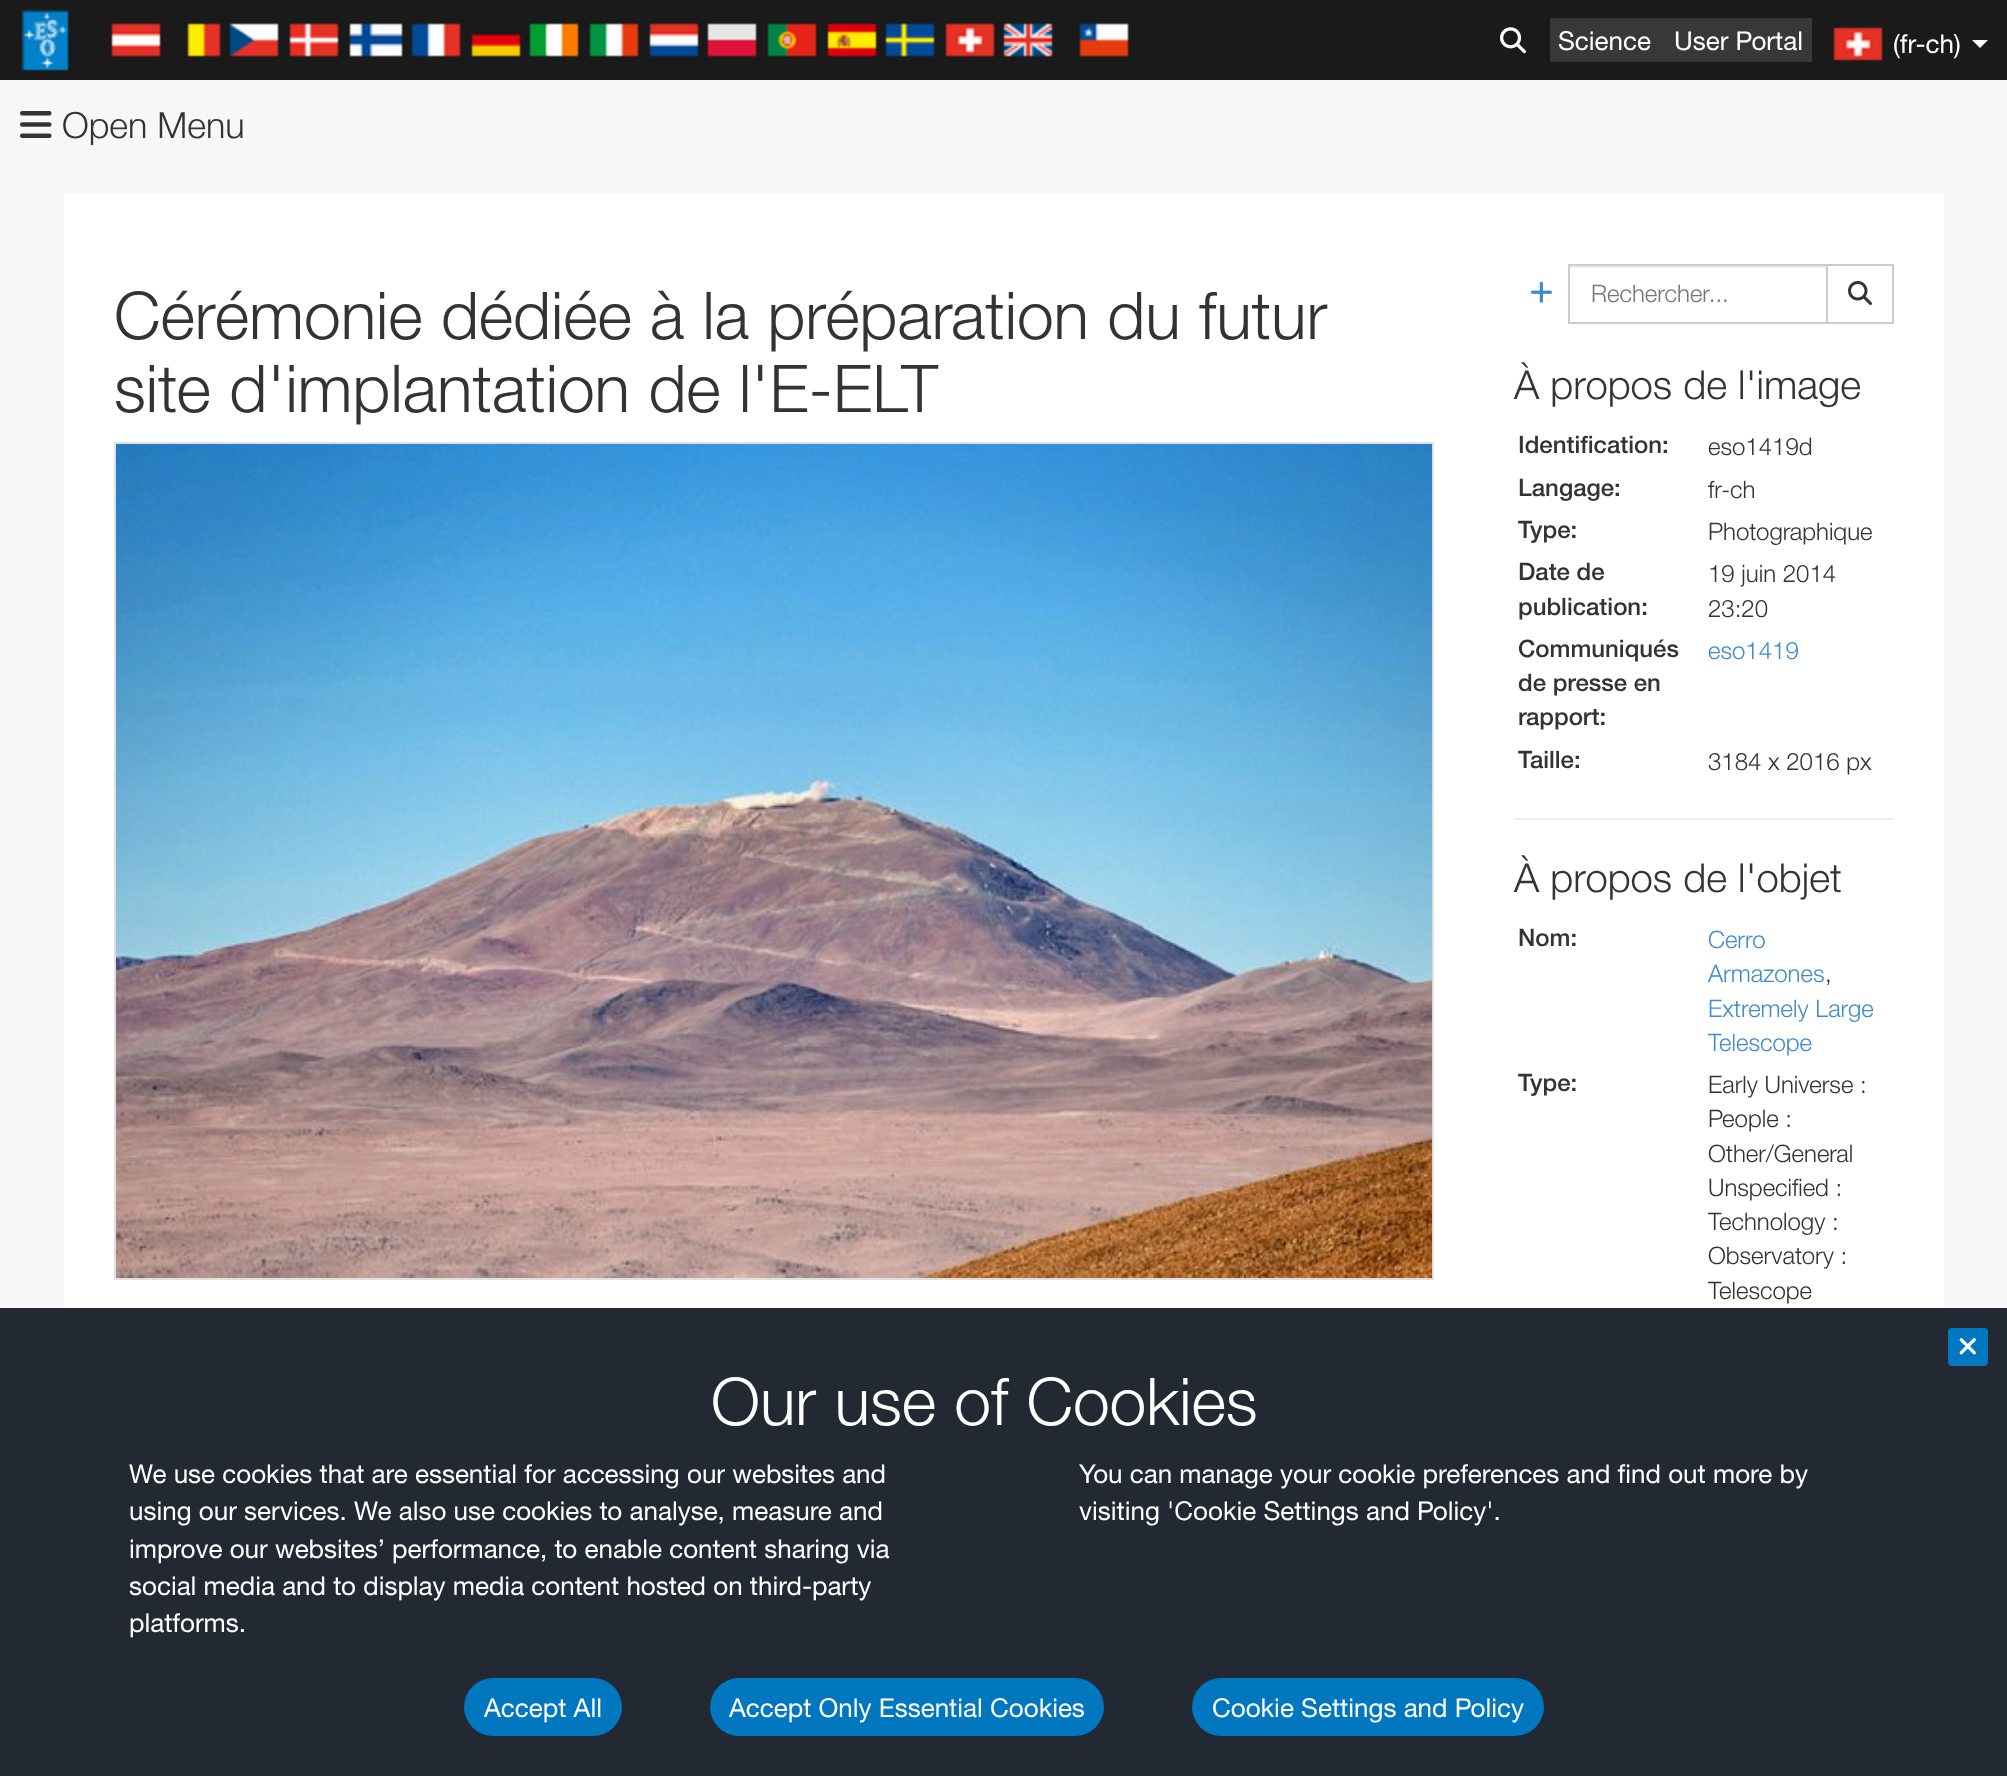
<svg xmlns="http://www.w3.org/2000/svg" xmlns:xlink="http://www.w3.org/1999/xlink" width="2007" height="1776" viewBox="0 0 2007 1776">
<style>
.cls-1{font:26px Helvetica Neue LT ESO;fill:#ffffff}
.cls-2{font:300 36px Helvetica Neue LT ESO;fill:#333333}
.cls-3{font:300 66px Helvetica Neue LT ESO;fill:#333333}
.cls-4{font:300 24px Helvetica Neue LT ESO;fill:#777777}
.cls-5{font:300 40px Helvetica Neue LT ESO;fill:#333333}
.cls-6{font:500 24px Helvetica Neue LT ESO;fill:#333333}
.cls-7{font:300 24px Helvetica Neue LT ESO;fill:#333333}
.cls-8{font:300 24px Helvetica Neue LT ESO;fill:#428bca}
.cls-9{font:300 66px Helvetica Neue LT ESO;fill:#ffffff}
</style>
<rect width="100%" height="100%" fill="#f7f7f7"/>
<rect fill="#1a1a1a" x="0" y="0" width="2007" height="80"/>
<image xlink:href="image0.png" x="21" y="9" width="48" height="62"/>
<image xlink:href="image1.png" x="1500" y="27" width="26" height="27"/>
<rect fill="#383838" x="1550" y="18" width="262" height="44"/>
<image xlink:href="image2.png" x="111" y="23" width="50" height="34"/>
<image xlink:href="image3.png" x="187" y="23" width="34" height="34"/>
<image xlink:href="image4.png" x="229" y="23" width="50" height="34"/>
<image xlink:href="image5.png" x="289" y="23" width="50" height="34"/>
<image xlink:href="image6.png" x="349" y="23" width="54" height="34"/>
<image xlink:href="image7.png" x="411" y="23" width="50" height="34"/>
<image xlink:href="image8.png" x="471" y="31" width="50" height="26"/>
<image xlink:href="image9.png" x="529" y="23" width="50" height="34"/>
<image xlink:href="image10.png" x="589" y="23" width="50" height="34"/>
<image xlink:href="image11.png" x="649" y="23" width="50" height="34"/>
<image xlink:href="image12.png" x="707" y="23" width="50" height="34"/>
<image xlink:href="image13.png" x="767" y="23" width="50" height="34"/>
<image xlink:href="image14.png" x="827" y="23" width="50" height="34"/>
<image xlink:href="image15.png" x="885" y="23" width="50" height="34"/>
<image xlink:href="image16.png" x="945" y="23" width="50" height="34"/>
<image xlink:href="image17.png" x="1003" y="23" width="50" height="34"/>
<image xlink:href="image18.png" x="1079" y="23" width="50" height="34"/>
<image xlink:href="image16.png" x="1833" y="27" width="50" height="34"/>
<path fill="#ffffff" d="M1972 40H1988L1980 48Z"/>
<image xlink:href="image19.png" x="20" y="111" width="32" height="27"/>
<rect fill="#ffffff" x="64" y="194" width="1880" height="1114"/>
<rect fill="none" stroke="#e0e0e0" stroke-width="2" x="115" y="443" width="1318" height="836"/>
<image xlink:href="image20.png" x="116" y="444" width="1316" height="834"/>
<image xlink:href="image21.png" x="1530" y="281" width="22" height="22"/>
<rect fill="#ececec" x="1570" y="266" width="256" height="2"/>
<rect fill="none" stroke="#cccccc" stroke-width="2" x="1827" y="265" width="66" height="58"/>
<rect fill="none" stroke="#cccccc" stroke-width="2" x="1569" y="265" width="258" height="58"/>
<image xlink:href="image22.png" x="1848" y="281" width="24" height="24"/>
<rect fill="#eeeeee" x="1514" y="818" width="380" height="2"/>
<rect fill="#232932" x="0" y="1308" width="2007" height="468"/>
<rect fill="#0077be" x="1948" y="1328" width="40" height="38" rx="4"/>
<image xlink:href="image23.png" x="1959" y="1338" width="17" height="17"/>
<rect fill="#0077be" x="464" y="1678" width="158" height="58" rx="29"/>
<rect fill="#0077be" x="710" y="1678" width="394" height="58" rx="29"/>
<rect fill="#0077be" x="1192" y="1678" width="352" height="58" rx="29"/>
<text class="cls-1" x="1558" y="50">Science</text>
<text class="cls-1" x="1674" y="50">User Portal</text>
<text class="cls-1" x="1893" y="53">(fr-ch)</text>
<text class="cls-2" x="62" y="138">Open Menu</text>
<text class="cls-3"><tspan x="114" y="339">Cérémonie dédiée à la préparation du futur</tspan><tspan x="114" y="412">site d'implantation de l'E-ELT</tspan></text>
<text class="cls-4" x="1591" y="302">Rechercher...</text>
<text class="cls-5" x="1514" y="399">À propos de l'image</text>
<text class="cls-6" x="1518" y="453">Identification:</text>
<text class="cls-7" x="1708" y="455">eso1419d</text>
<text class="cls-6" x="1518" y="496">Langage:</text>
<text class="cls-7" x="1708" y="498">fr-ch</text>
<text class="cls-6" x="1518" y="538">Type:</text>
<text class="cls-7" x="1708" y="540">Photographique</text>
<text class="cls-6"><tspan x="1518" y="580">Date de</tspan><tspan x="1518" y="615">publication:</tspan></text>
<text class="cls-7"><tspan x="1708" y="582">19 juin 2014</tspan><tspan x="1708" y="617">23:20</tspan></text>
<text class="cls-6"><tspan x="1518" y="657">Communiqués</tspan><tspan x="1518" y="691">de presse en</tspan><tspan x="1518" y="725">rapport:</tspan></text>
<text class="cls-8" x="1708" y="659">eso1419</text>
<text class="cls-6" x="1518" y="768">Taille:</text>
<text class="cls-7" x="1708" y="770">3184 x 2016 px</text>
<text class="cls-5" x="1514" y="892">À propos de l'objet</text>
<text class="cls-6" x="1518" y="946">Nom:</text>
<text class="cls-8"><tspan x="1708" y="948">Cerro</tspan><tspan x="1708" y="982">Armazones</tspan></text>
<text class="cls-7" x="1825" y="982">,</text>
<text class="cls-8"><tspan x="1708" y="1017">Extremely Large</tspan><tspan x="1708" y="1051">Telescope</tspan></text>
<text class="cls-6" x="1518" y="1091">Type:</text>
<text class="cls-7"><tspan x="1708" y="1093">Early Universe :</tspan><tspan x="1708" y="1127">People :</tspan><tspan x="1708" y="1162">Other/General</tspan><tspan x="1708" y="1196">Unspecified :</tspan><tspan x="1708" y="1230">Technology :</tspan><tspan x="1708" y="1264">Observatory :</tspan><tspan x="1708" y="1299">Telescope</tspan></text>
<text class="cls-9" x="711" y="1425">Our use of Cookies</text>
<text class="cls-1"><tspan x="129" y="1483">We use cookies that are essential for accessing our websites and</tspan><tspan x="129" y="1520">using our services. We also use cookies to analyse, measure and</tspan><tspan x="129" y="1558">improve our websites’ performance, to enable content sharing via</tspan><tspan x="129" y="1595">social media and to display media content hosted on third-party</tspan><tspan x="129" y="1632">platforms.</tspan></text>
<text class="cls-1"><tspan x="1079" y="1483">You can manage your cookie preferences and find out more by</tspan><tspan x="1079" y="1520">visiting 'Cookie Settings and Policy'.</tspan></text>
<text class="cls-1" x="484" y="1717">Accept All</text>
<text class="cls-1" x="729" y="1717">Accept Only Essential Cookies</text>
<text class="cls-1" x="1212" y="1717">Cookie Settings and Policy</text>
</svg>
